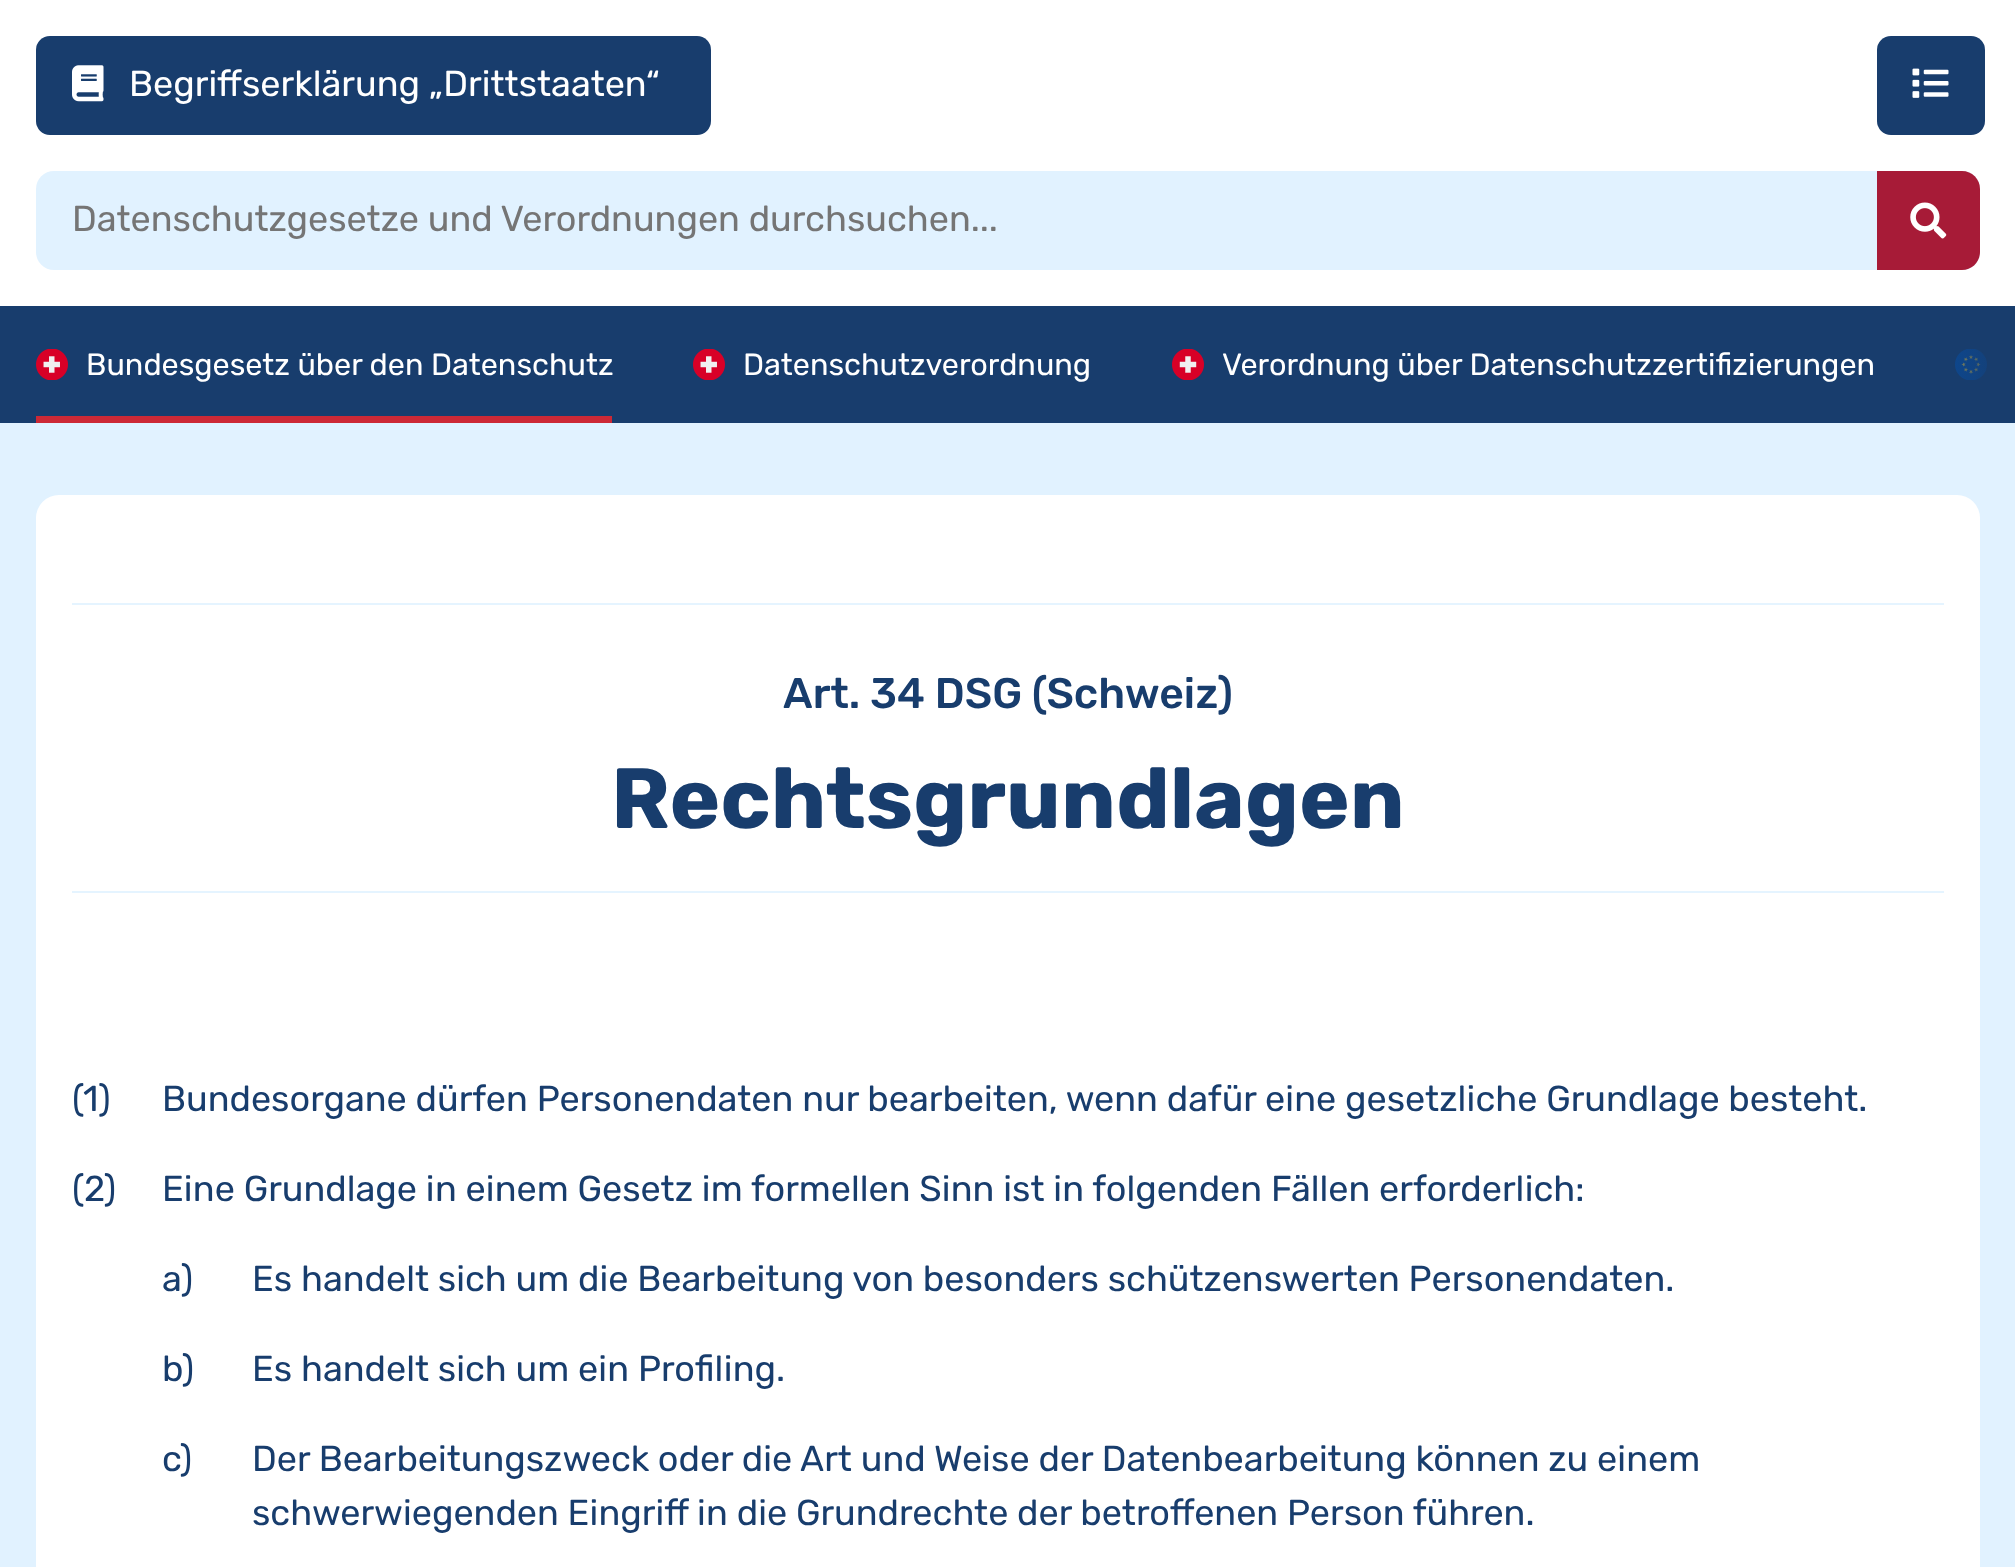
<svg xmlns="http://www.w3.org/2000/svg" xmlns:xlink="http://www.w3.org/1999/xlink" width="2015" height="1567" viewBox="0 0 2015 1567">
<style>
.cls-1{font:36px Rubik;fill:#ffffff}
.cls-2{font:36px Rubik;fill:#757575}
.cls-3{font:30.6px Rubik;fill:#ffffff}
.cls-4{font:500 42.75px Rubik;fill:#183d6d}
.cls-5{font:bold 85.5px Rubik;fill:#183d6d}
.cls-6{font:36px Rubik;fill:#183d6d}
</style>
<defs>
<linearGradient id="g1" gradientUnits="userSpaceOnUse" x1="1872" y1="365" x2="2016" y2="365"><stop offset="0" stop-color="#183d6d" stop-opacity="0"/><stop offset="1" stop-color="#183d6d"/></linearGradient>
</defs>
<rect width="100%" height="100%" fill="#183d6d"/>
<rect fill="#ffffff" x="0" y="0" width="2015" height="306"/>
<rect fill="#183d6d" x="36" y="36" width="675" height="99" rx="14"/>
<image xlink:href="image0.png" x="72" y="65" width="32" height="37"/>
<rect fill="#183d6d" x="1877" y="36" width="108" height="99" rx="14"/>
<image xlink:href="image1.png" x="1912" y="68" width="37" height="30"/>
<rect fill="#e1f2ff" x="36" y="171" width="1944" height="99" rx="18"/>
<path fill="#a71b37" d="M1877 171H1962C1972 171 1980 179 1980 189V252C1980 262 1972 270 1962 270H1877Z"/>
<image xlink:href="image2.png" x="1910" y="202" width="37" height="37"/>
<image xlink:href="image3.png" x="36" y="349" width="32" height="31"/>
<rect fill="#cc2936" x="36" y="416" width="576" height="7"/>
<image xlink:href="image3.png" x="693" y="349" width="32" height="31"/>
<image xlink:href="image4.png" x="1172" y="349" width="32" height="31"/>
<image xlink:href="image5.png" x="1955" y="349" width="32" height="31"/>
<rect fill="url(#g1)" x="1955" y="349" width="32" height="31"/>
<rect fill="#e1f2ff" x="0" y="423" width="2015" height="1144"/>
<rect fill="#ffffff" x="36" y="495" width="1944" height="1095" rx="23"/>
<rect fill="#e5f4ff" x="72" y="603" width="1872" height="2"/>
<rect fill="#e5f4ff" x="72" y="891" width="1872" height="2"/>
<text class="cls-1" x="129" y="96">Begriffserklärung „Drittstaaten“</text>
<text class="cls-2" x="72" y="231">Datenschutzgesetze und Verordnungen durchsuchen...</text>
<text class="cls-3" x="86" y="375">Bundesgesetz über den Datenschutz</text>
<text class="cls-3" x="743" y="375">Datenschutzverordnung</text>
<text class="cls-3" x="1222" y="375">Verordnung über Datenschutzzertifizierungen</text>
<text class="cls-4" x="783" y="708">Art. 34 DSG (Schweiz)</text>
<text class="cls-5" x="611" y="828">Rechtsgrundlagen</text>
<text class="cls-6" x="72" y="1111">(</text>
<text class="cls-6" x="83" y="1111">1)</text>
<text class="cls-6" x="162" y="1111">Bundesorgane dürfen Personendaten nur bearbeiten, wenn dafür eine gesetzliche Grundlage besteht.</text>
<text class="cls-6" x="72" y="1201">(</text>
<text class="cls-6" x="84" y="1201">2</text>
<text class="cls-6" x="104" y="1201">)</text>
<text class="cls-6" x="162" y="1201">Eine Grundlage in einem Gesetz im formellen Sinn ist in folgenden Fällen erforderlich:</text>
<text class="cls-6" x="162" y="1291">a</text>
<text class="cls-6" x="181" y="1291">)</text>
<text class="cls-6" x="252" y="1291">Es handelt sich um die Bearbeitung von besonders schützenswerten Personendaten.</text>
<text class="cls-6" x="162" y="1381">b</text>
<text class="cls-6" x="182" y="1381">)</text>
<text class="cls-6" x="252" y="1381">Es handelt sich um ein Profiling.</text>
<text class="cls-6" x="162" y="1471">c</text>
<text class="cls-6" x="180" y="1471">)</text>
<text class="cls-6"><tspan x="252" y="1471">Der Bearbeitungszweck oder die Art und Weise der Datenbearbeitung können zu einem</tspan><tspan x="252" y="1525">schwerwiegenden Eingriff in die Grundrechte der betroffenen Person führen.</tspan></text>
</svg>
